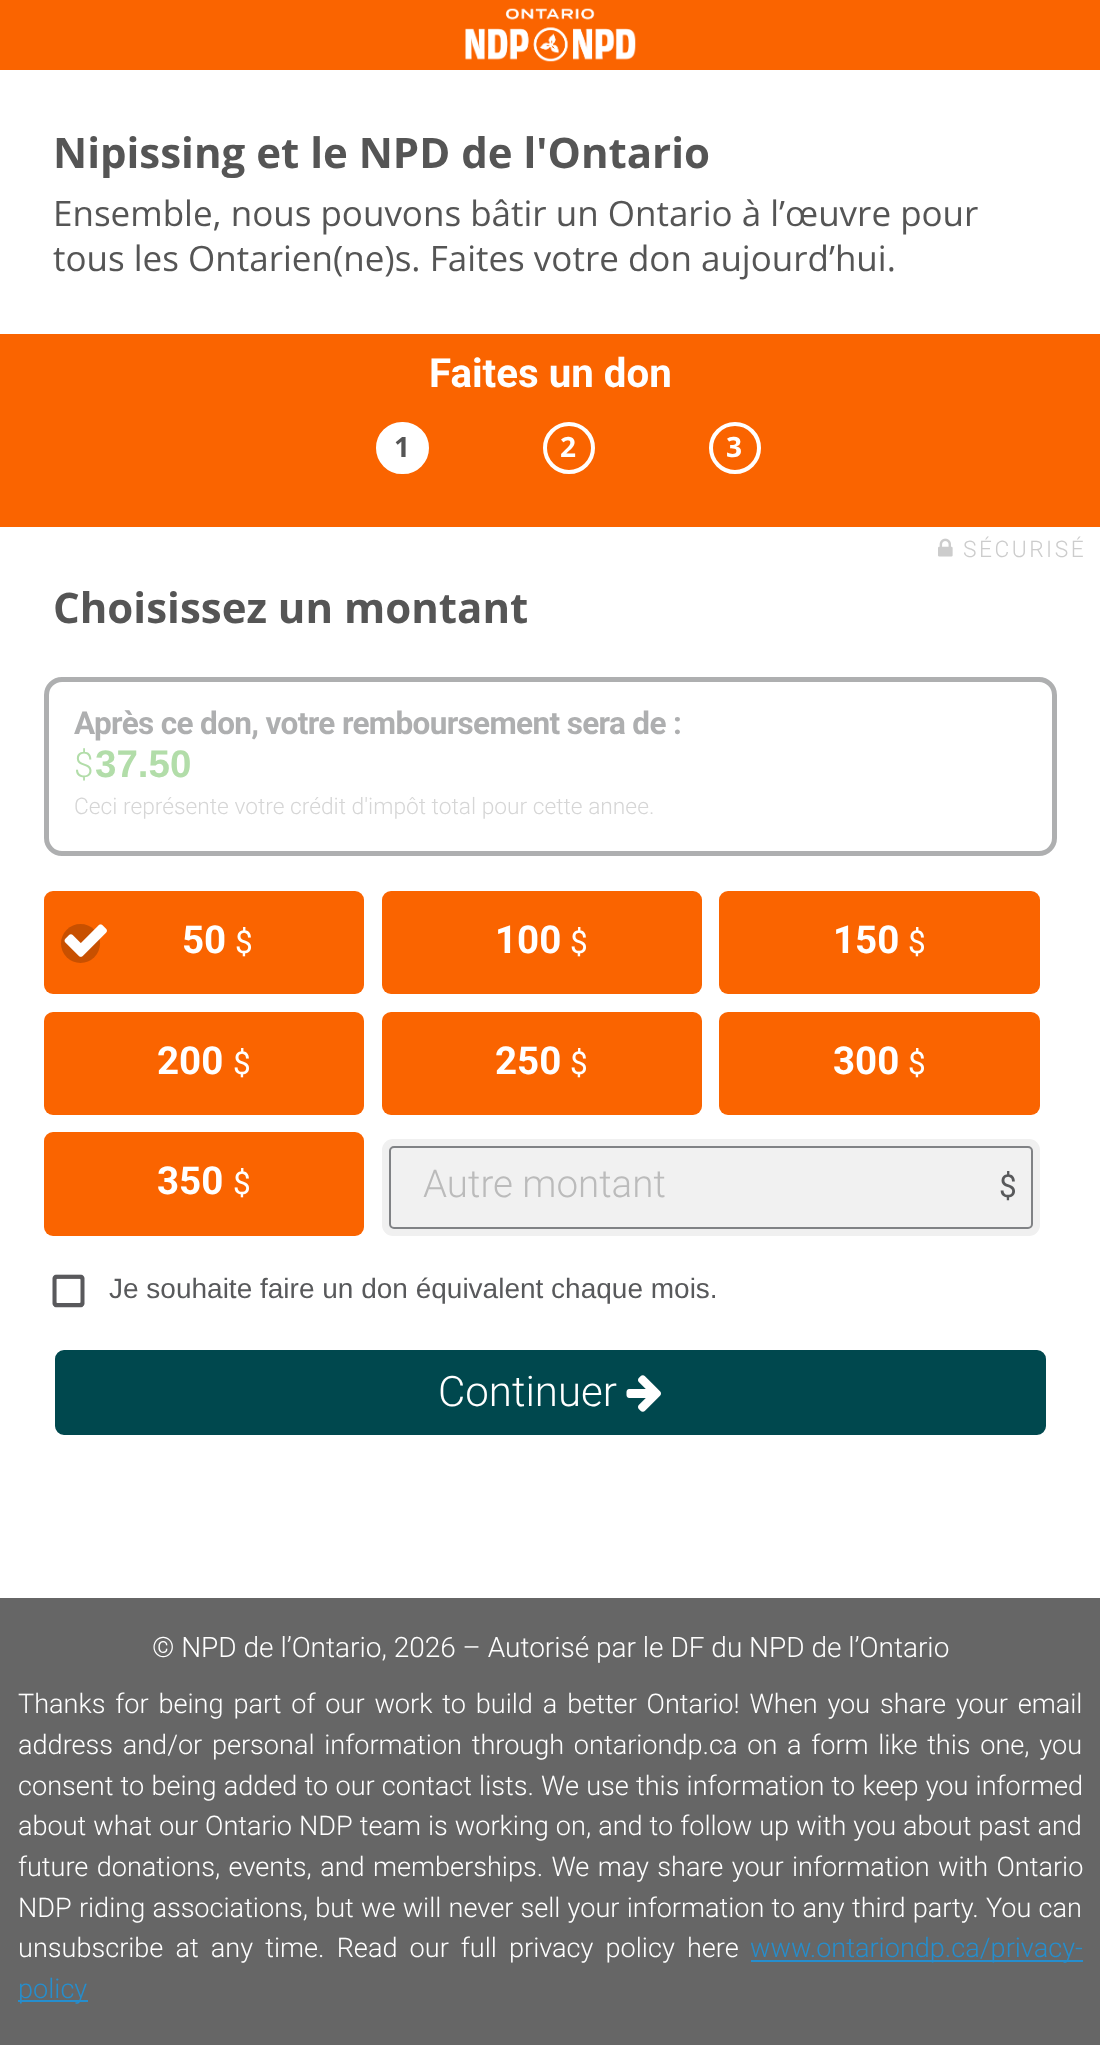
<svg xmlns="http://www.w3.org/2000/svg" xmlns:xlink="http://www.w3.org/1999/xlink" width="1100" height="2045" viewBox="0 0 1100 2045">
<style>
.cls-1{font:bold 42px Open Sans;fill:#555555}
.cls-2{font:35px Open Sans;fill:#555555}
.cls-3{font:bold 40.25px Roboto;fill:#ffffff}
.cls-4{font:bold 28px Open Sans;fill:#555555}
.cls-5{font:bold 28px Open Sans;fill:#ffffff}
.cls-6{font:300 22.75px Roboto;letter-spacing:2.5px;fill:#cccccc}
.cls-7{font:bold 31.5px Roboto;letter-spacing:-0.65px;fill:#aeafb0}
.cls-8{font:300 35px Roboto;fill:#b2dda9}
.cls-9{font:bold 38.5px Liberation Sans;fill:#b2dda9}
.cls-10{font:300 22.75px Roboto;fill:#d6d6d6}
.cls-11{font:bold 38.5px Roboto;fill:#ffffff}
.cls-12{font:31.5px Roboto;fill:#ffffff}
.cls-13{font:300 38.5px Roboto;fill:#bbbbbb}
.cls-14{font:31.5px Roboto;fill:#58595b}
.cls-15{font:28px Liberation Sans;fill:#58595b}
.cls-16{font:300 42px Roboto;fill:#ffffff}
.cls-17{font:300 28px Roboto;fill:#ffffff}
.cls-18{font:300 27.1px Roboto;fill:#ffffff}
.cls-19{font:300 27.1px Roboto;fill:#268ecd}
</style>
<rect width="100%" height="100%" fill="#ffffff"/>
<rect fill="#fa6400" x="0" y="0" width="1100" height="70"/>
<image xlink:href="image0.png" x="465" y="8" width="171" height="54"/>
<rect fill="#fa6400" x="0" y="334" width="1100" height="193"/>
<rect fill="#ffffff" stroke="#ffffff" stroke-width="4" x="378" y="424" width="49" height="48" rx="24"/>
<circle fill="none" stroke="#ffffff" stroke-width="4" cx="569" cy="448" r="24"/>
<circle fill="none" stroke="#ffffff" stroke-width="4" cx="735" cy="448" r="24"/>
<image xlink:href="image1.png" x="938" y="538" width="15" height="19"/>
<rect fill="none" stroke="#aeafb0" stroke-width="5" x="46.5" y="679.5" width="1008" height="174" rx="15.5"/>
<rect fill="#fa6400" x="44" y="891" width="320" height="103" rx="9"/>
<circle fill="#c85000" cx="80.5" cy="943.5" r="19.5"/>
<image xlink:href="image2.png" x="64" y="924" width="43" height="33"/>
<rect fill="#fa6400" x="382" y="891" width="320" height="103" rx="9"/>
<rect fill="#fa6400" x="719" y="891" width="321" height="103" rx="9"/>
<rect fill="#fa6400" x="44" y="1012" width="320" height="103" rx="9"/>
<rect fill="#fa6400" x="382" y="1012" width="320" height="103" rx="9"/>
<rect fill="#fa6400" x="719" y="1012" width="321" height="103" rx="9"/>
<rect fill="#fa6400" x="44" y="1132" width="320" height="104" rx="9"/>
<rect fill="#f0f0f0" x="382" y="1139" width="658" height="97" rx="11"/>
<rect fill="#ffffff" fill-opacity="0.1" stroke="#808285" stroke-width="2" x="390" y="1147" width="642" height="81" rx="4"/>
<image xlink:href="image3.png" x="52" y="1274" width="33" height="34"/>
<rect fill="#00484e" stroke="#ffffff" stroke-width="2" x="54" y="1349" width="993" height="87" rx="10"/>
<image xlink:href="image4.png" x="626" y="1375" width="35" height="37"/>
<rect fill="#666666" x="0" y="1598" width="1100" height="447"/>
<rect fill="#268ecd" x="751" y="1960" width="332" height="2"/>
<rect fill="#268ecd" x="18" y="2000" width="70" height="2"/>
<text class="cls-1" x="53" y="168">Nipissing et le NPD de l'Ontario</text>
<text class="cls-2"><tspan x="53" y="226">Ensemble, nous pouvons bâtir un Ontario à l’œuvre pour</tspan><tspan x="53" y="271">tous les Ontarien(ne)s. Faites votre don aujourd’hui.</tspan></text>
<text class="cls-3" x="429" y="387">Faites un don</text>
<text class="cls-4" x="394" y="457">1</text>
<text class="cls-5" x="560" y="457">2</text>
<text class="cls-5" x="726" y="457">3</text>
<text class="cls-6" x="963" y="557">SÉCURISÉ</text>
<text class="cls-1" x="53" y="623">Choisissez un montant</text>
<text class="cls-7" x="74" y="734">Après ce don, votre remboursement sera de :</text>
<text class="cls-8" x="74" y="777">$</text>
<text class="cls-9" x="95" y="777">37.50</text>
<text class="cls-10" x="74" y="814">Ceci représente votre crédit d'impôt total pour cette annee.</text>
<text class="cls-11" x="182" y="953">50</text>
<text class="cls-12" x="235" y="953">$</text>
<text class="cls-11" x="495" y="953">100</text>
<text class="cls-12" x="570" y="953">$</text>
<text class="cls-11" x="833" y="953">150</text>
<text class="cls-12" x="908" y="953">$</text>
<text class="cls-11" x="157" y="1074">200</text>
<text class="cls-12" x="233" y="1074">$</text>
<text class="cls-11" x="495" y="1074">250</text>
<text class="cls-12" x="570" y="1074">$</text>
<text class="cls-11" x="833" y="1074">300</text>
<text class="cls-12" x="908" y="1074">$</text>
<text class="cls-11" x="157" y="1194">350</text>
<text class="cls-12" x="233" y="1194">$</text>
<text class="cls-13" x="423" y="1197">Autre montant</text>
<text class="cls-14" x="999" y="1197">$</text>
<text class="cls-15" x="109" y="1298">Je souhaite faire un don équivalent chaque mois.</text>
<text class="cls-16" x="438" y="1406">Continuer</text>
<text class="cls-17" x="152" y="1657">© NPD de l’Ontario, 2026 – Autorisé par le DF du NPD de l’Ontario</text>
<text class="cls-18"><tspan x="18" y="1713" word-spacing="3.25">Thanks for being part of our work to build a better Ontario! When you share your email</tspan><tspan x="18" y="1754" word-spacing="3.1">address and/or personal information through ontariondp.ca on a form like this one, you</tspan><tspan x="18" y="1795" word-spacing="0.6">consent to being added to our contact lists. We use this information to keep you informed</tspan><tspan x="18" y="1835" word-spacing="0.4">about what our Ontario NDP team is working on, and to follow up with you about past and</tspan><tspan x="18" y="1876" word-spacing="1.75">future donations, events, and memberships. We may share your information with Ontario</tspan><tspan x="18" y="1917" word-spacing="0.6">NDP riding associations, but we will never sell your information to any third party. You can</tspan><tspan x="18" y="1957" word-spacing="5.5">unsubscribe at any time. Read our full privacy policy here</tspan></text>
<text class="cls-19" x="750" y="1957">www.ontariondp.ca/privacy-</text>
<text class="cls-19" x="18" y="1998">policy</text>
</svg>
